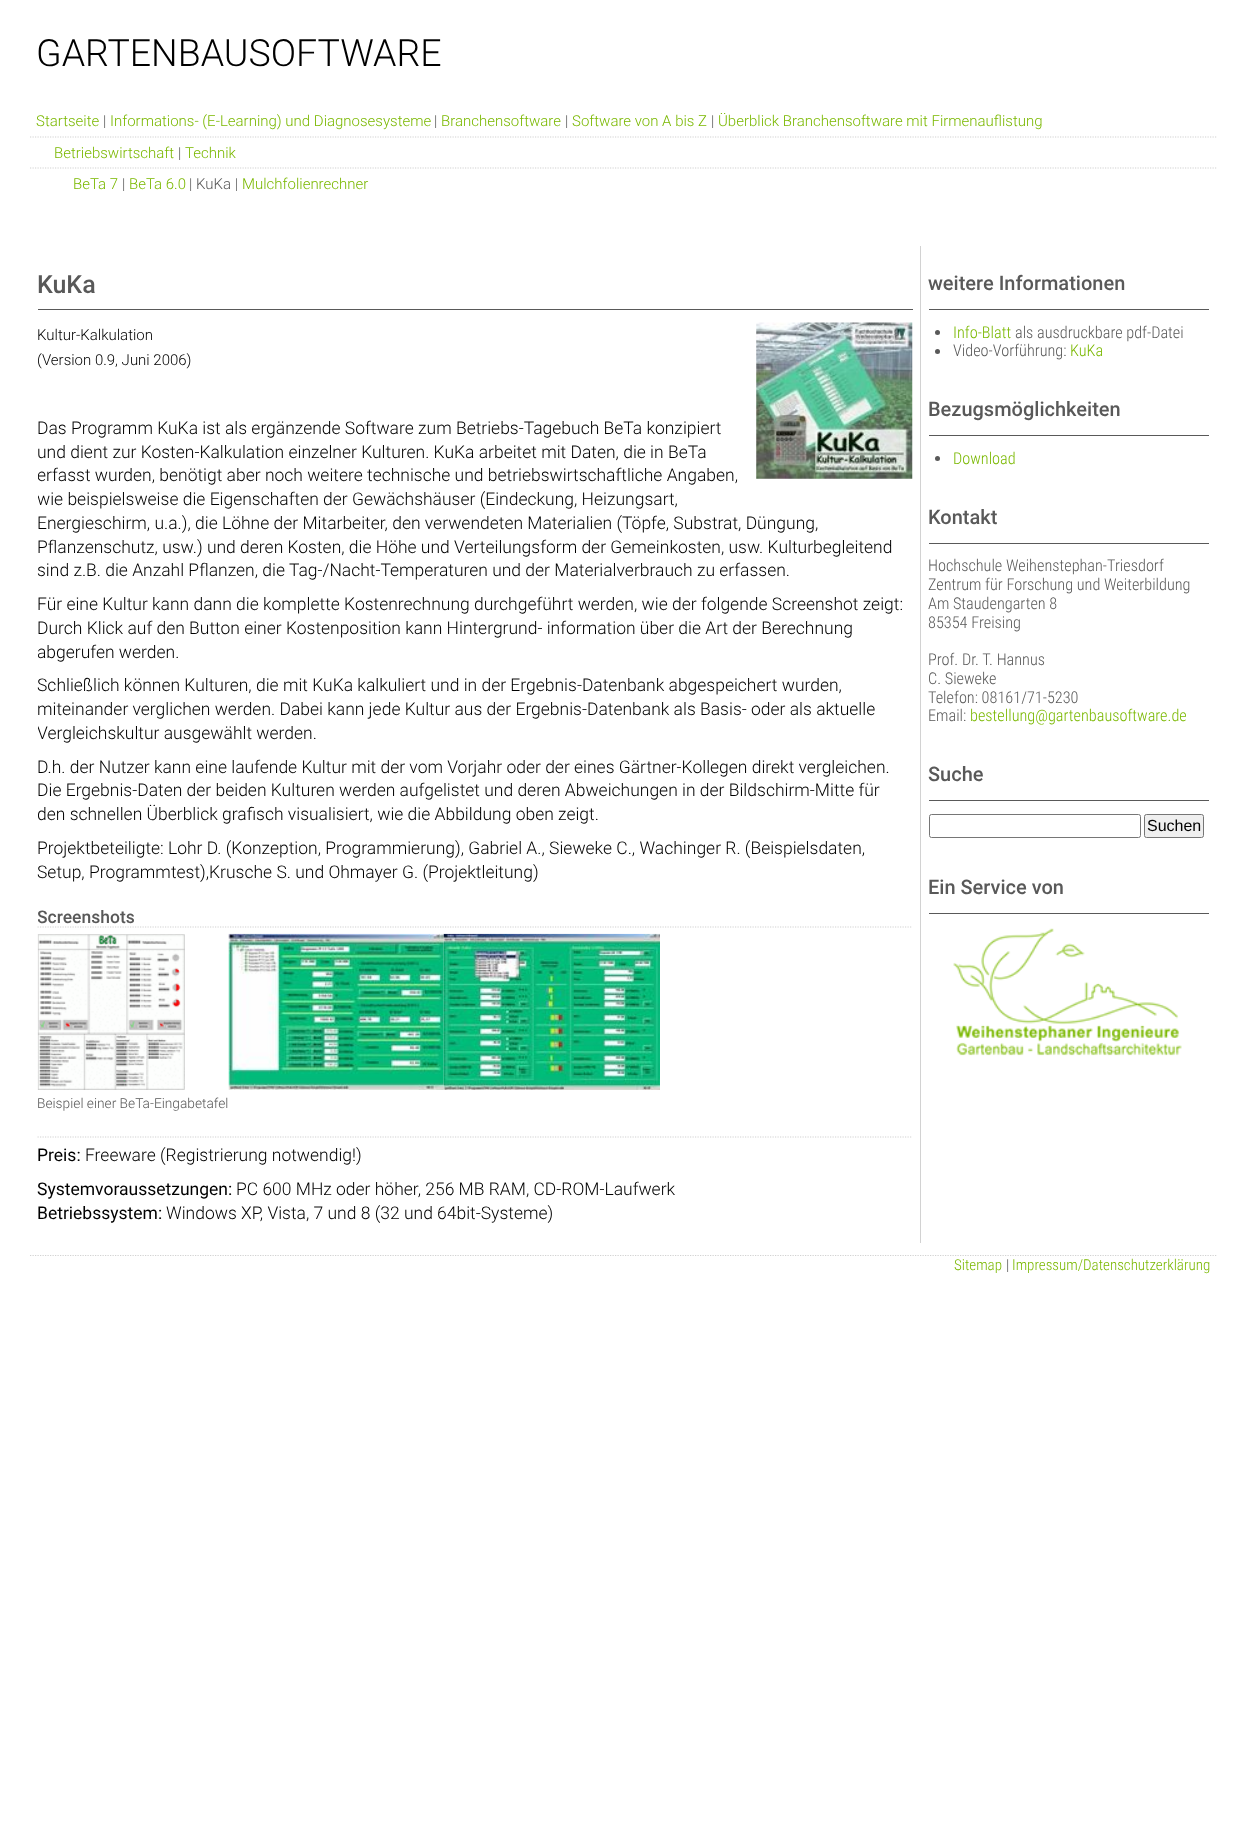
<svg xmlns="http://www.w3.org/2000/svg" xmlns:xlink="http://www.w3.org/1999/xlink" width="1246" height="1846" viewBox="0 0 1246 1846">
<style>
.cls-1{font:300 37.5px Roboto;fill:#000000}
.cls-2{font:300 15px Roboto;fill:#7ab800}
.cls-3{font:300 15px Roboto;fill:#595959}
.cls-4{font:500 25px Roboto;fill:#595959}
.cls-5{font:300 15px Roboto;fill:#000000}
.cls-6{font:300 17.5px Roboto;fill:#000000}
.cls-7{font:500 17.5px Roboto;fill:#595959}
.cls-8{font:300 13.75px Roboto;fill:#595959}
.cls-9{font:17.5px Roboto;fill:#000000}
.cls-10{font:500 20px Roboto;fill:#595959}
.cls-11{font:300 16.25px Roboto Condensed;fill:#7ab800}
.cls-12{font:300 16.25px Roboto Condensed;fill:#595959}
.cls-13{font:16px Liberation Sans;fill:#000000}
.cls-14{font:300 15px Roboto Condensed;fill:#7ab800}
.cls-15{font:300 15px Roboto Condensed;fill:#595959}
</style>
<defs>
<clipPath id="clip1"><rect x="38" y="259" width="875" height="976"/></clipPath>
</defs>
<rect width="100%" height="100%" fill="#ffffff"/>
<path fill="none" stroke="#d2d2d2" stroke-width="1.2" stroke-dasharray="1.25 1.25" d="M30 137H1217.5"/>
<path fill="none" stroke="#d2d2d2" stroke-width="1.2" stroke-dasharray="1.25 1.25" d="M30 168H1217.5"/>
<rect fill="#d2d2d2" x="920" y="246" width="1" height="997"/>
<rect fill="#595959" x="38" y="309" width="875" height="1"/>
<image xlink:href="image0.png" x="756" y="322" width="157" height="157"/>
<path fill="none" stroke="#d2d2d2" stroke-width="1.2" stroke-dasharray="1.25 1.25" d="M37.5 927H912.5"/>
<image xlink:href="image1.png" x="228" y="933" width="216" height="157"/>
<image xlink:href="image2.png" x="443" y="933" width="217" height="157"/>
<image xlink:href="image3.png" x="37" y="934" width="148" height="156"/>
<path fill="none" stroke="#d2d2d2" stroke-width="1.2" stroke-dasharray="1.25 1.25" d="M37.5 1137H912.5"/>
<rect fill="#595959" x="929" y="309" width="280" height="1"/>
<circle fill="#595959" cx="937.5" cy="332.5" r="2.5"/>
<circle fill="#595959" cx="937.5" cy="351.5" r="2.5"/>
<rect fill="#595959" x="929" y="435" width="280" height="1"/>
<circle fill="#595959" cx="937.5" cy="458.5" r="2.5"/>
<rect fill="#595959" x="929" y="543" width="280" height="1"/>
<rect fill="#595959" x="929" y="800" width="280" height="1"/>
<rect fill="none" stroke="#767676" x="929.5" y="814.5" width="211" height="23" rx="2"/>
<rect fill="#efefef" stroke="#767676" x="1144.5" y="814.5" width="59" height="23" rx="2"/>
<rect fill="#595959" x="929" y="913" width="280" height="1"/>
<image xlink:href="image4.png" x="953" y="928" width="229" height="128"/>
<path fill="none" stroke="#d2d2d2" stroke-width="1.2" stroke-dasharray="1.25 1.25" d="M30 1255.5H1217.5"/>
<text class="cls-1" x="36" y="66">GARTENBAUSOFTWARE</text>
<text class="cls-2" x="36" y="126">Startseite</text>
<text class="cls-3" x="103" y="126">|</text>
<text class="cls-2" x="110" y="126">Informations- (E-Learning) und Diagnosesysteme</text>
<text class="cls-3" x="434" y="126">|</text>
<text class="cls-2" x="441" y="126">Branchensoftware</text>
<text class="cls-3" x="565" y="126">|</text>
<text class="cls-2" x="572" y="126">Software von A bis Z</text>
<text class="cls-3" x="711" y="126">|</text>
<text class="cls-2" x="718" y="126">Überblick Branchensoftware mit Firmenauflistung</text>
<text class="cls-2" x="54" y="158">Betriebswirtschaft</text>
<text class="cls-3" x="178" y="158">|</text>
<text class="cls-2" x="185" y="158">Technik</text>
<text class="cls-2" x="73" y="189">BeTa 7</text>
<text class="cls-3" x="122" y="189">|</text>
<text class="cls-2" x="129" y="189">BeTa 6.0</text>
<text class="cls-3" x="189" y="189">| KuKa |</text>
<text class="cls-2" x="242" y="189">Mulchfolienrechner</text>
<text class="cls-4" x="37" y="293">KuKa</text>
<text class="cls-5"><tspan x="37" y="340">Kultur-Kalkulation</tspan><tspan x="37" y="365">(Version 0.9, Juni 2006)</tspan></text>
<text class="cls-6"><tspan x="37" y="434">Das Programm KuKa ist als ergänzende Software zum Betriebs-Tagebuch BeTa konzipiert</tspan><tspan x="37" y="458">und dient zur Kosten-Kalkulation einzelner Kulturen. KuKa arbeitet mit Daten, die in BeTa</tspan></text>
<g clip-path="url(#clip1)">
<text class="cls-6"><tspan x="37" y="481">erfasst wurden, benötigt aber noch weitere technische und betriebswirtschaftliche Angaben,</tspan><tspan x="37" y="505">wie beispielsweise die Eigenschaften der Gewächshäuser (Eindeckung, Heizungsart,</tspan></text>
</g>
<text class="cls-6"><tspan x="37" y="529">Energieschirm, u.a.), die Löhne der Mitarbeiter, den verwendeten Materialien (Töpfe, Substrat, Düngung,</tspan><tspan x="37" y="553">Pflanzenschutz, usw.) und deren Kosten, die Höhe und Verteilungsform der Gemeinkosten, usw. Kulturbegleitend</tspan><tspan x="37" y="576">sind z.B. die Anzahl Pflanzen, die Tag-/Nacht-Temperaturen und der Materialverbrauch zu erfassen.</tspan><tspan x="37" y="610">Für eine Kultur kann dann die komplette Kostenrechnung durchgeführt werden, wie der folgende Screenshot zeigt:</tspan><tspan x="37" y="634">Durch Klick auf den Button einer Kostenposition kann Hintergrund- information über die Art der Berechnung</tspan></text>
<g clip-path="url(#clip1)">
<text class="cls-6" x="37" y="658">abgerufen werden.</text>
</g>
<text class="cls-6"><tspan x="37" y="691">Schließlich können Kulturen, die mit KuKa kalkuliert und in der Ergebnis-Datenbank abgespeichert wurden,</tspan><tspan x="37" y="715">miteinander verglichen werden. Dabei kann jede Kultur aus der Ergebnis-Datenbank als Basis- oder als aktuelle</tspan></text>
<g clip-path="url(#clip1)">
<text class="cls-6" x="37" y="739">Vergleichskultur ausgewählt werden.</text>
</g>
<text class="cls-6"><tspan x="37" y="773">D.h. der Nutzer kann eine laufende Kultur mit der vom Vorjahr oder der eines Gärtner-Kollegen direkt vergleichen.</tspan><tspan x="37" y="796">Die Ergebnis-Daten der beiden Kulturen werden aufgelistet und deren Abweichungen in der Bildschirm-Mitte für</tspan></text>
<g clip-path="url(#clip1)">
<text class="cls-6" x="37" y="820">den schnellen Überblick grafisch visualisiert, wie die Abbildung oben zeigt.</text>
</g>
<text class="cls-6"><tspan x="37" y="854">Projektbeteiligte: Lohr D. (Konzeption, Programmierung), Gabriel A., Sieweke C., Wachinger R. (Beispielsdaten,</tspan><tspan x="37" y="878">Setup, Programmtest),Krusche S. und Ohmayer G. (Projektleitung)</tspan></text>
<g clip-path="url(#clip1)">
<text class="cls-7" x="37" y="923">Screenshots</text>
</g>
<text class="cls-8" x="37" y="1108">Beispiel einer BeTa-Eingabetafel</text>
<text class="cls-9" x="37" y="1161">Preis:</text>
<text class="cls-6" x="85" y="1161">Freeware (Registrierung notwendig!)</text>
<text class="cls-9" x="37" y="1195">Systemvoraussetzungen:</text>
<text class="cls-6" x="236" y="1195">PC 600 MHz oder höher, 256 MB RAM, CD-ROM-Laufwerk</text>
<text class="cls-9" x="37" y="1219">Betriebssystem:</text>
<text class="cls-6" x="166" y="1219">Windows XP, Vista, 7 und 8 (32 und 64bit-Systeme)</text>
<text class="cls-10" x="928" y="290">weitere Informationen</text>
<text class="cls-11" x="953" y="338">Info-Blatt</text>
<text class="cls-12" x="1015" y="338">als ausdruckbare pdf-Datei</text>
<text class="cls-12" x="953" y="356">Video-Vorführung:</text>
<text class="cls-11" x="1070" y="356">KuKa</text>
<text class="cls-10" x="928" y="416">Bezugsmöglichkeiten</text>
<text class="cls-11" x="953" y="464">Download</text>
<text class="cls-10" x="928" y="524">Kontakt</text>
<text class="cls-12"><tspan x="928" y="571">Hochschule Weihenstephan-Triesdorf</tspan><tspan x="928" y="590">Zentrum für Forschung und Weiterbildung</tspan><tspan x="928" y="609">Am Staudengarten 8</tspan><tspan x="928" y="628">85354 Freising</tspan></text>
<text class="cls-12"><tspan x="928" y="665">Prof. Dr. T. Hannus</tspan><tspan x="928" y="684">C. Sieweke</tspan><tspan x="928" y="703">Telefon: 08161/71-5230</tspan><tspan x="928" y="721">Email:</tspan></text>
<text class="cls-11" x="970" y="721">bestellung@gartenbausoftware.de</text>
<text class="cls-10" x="928" y="781">Suche</text>
<text class="cls-13" x="1147" y="831">Suchen</text>
<text class="cls-10" x="928" y="894">Ein Service von</text>
<text class="cls-14" x="954" y="1270">Sitemap</text>
<text class="cls-15" x="1006" y="1270">|</text>
<text class="cls-14" x="1012" y="1270">Impressum/Datenschutzerklärung</text>
</svg>
